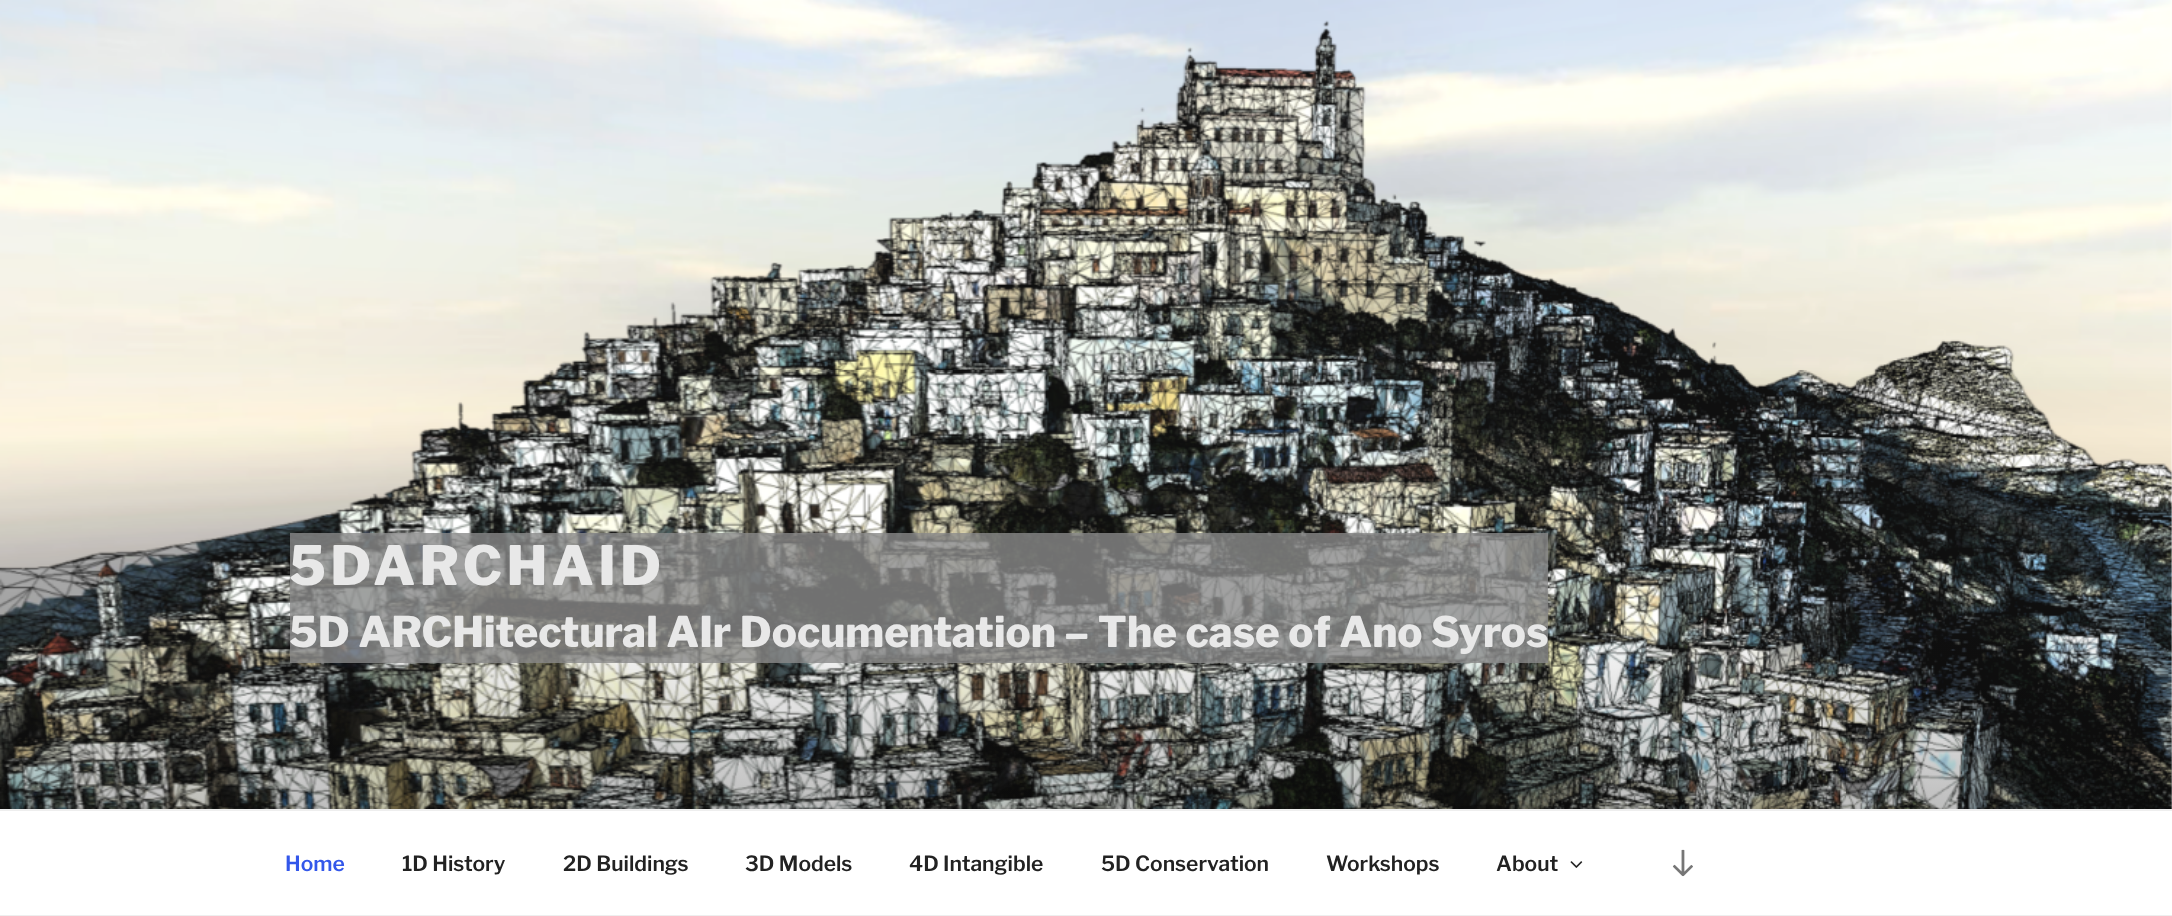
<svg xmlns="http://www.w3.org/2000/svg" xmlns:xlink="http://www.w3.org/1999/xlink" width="2172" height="916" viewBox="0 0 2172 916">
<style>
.cls-1{font:800 54px Libre Franklin;letter-spacing:4.25px;fill:#e8e8e8}
.cls-2{font:800 42px Libre Franklin;fill:#e8e8e8}
.cls-3{font:600 21px Libre Franklin;fill:#3357ea}
.cls-4{font:600 21px Libre Franklin;fill:#222222}
</style>
<defs>
<linearGradient id="g1" gradientUnits="userSpaceOnUse" x1="1086" y1="613" x2="1086" y2="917"><stop offset="0" stop-color="#000000" stop-opacity="0"/><stop offset="0.75" stop-color="#000000" stop-opacity="0.3"/><stop offset="1" stop-color="#000000" stop-opacity="0.3"/></linearGradient>
</defs>
<rect width="100%" height="100%" fill="#fafafa"/>
<image xlink:href="image0.png" x="0" y="0" width="2172" height="809"/>
<rect fill="url(#g1)" x="0" y="629" width="2172" height="180"/>
<rect fill="#8a8a8a" fill-opacity="0.8" x="290" y="533" width="1258" height="67"/>
<rect fill="#8a8a8a" fill-opacity="0.8" x="290" y="600" width="1258" height="63"/>
<rect fill="#ffffff" x="0" y="811" width="2172" height="104"/>
<rect fill="#eeeeee" x="0" y="809" width="2172" height="2"/>
<rect fill="#eeeeee" x="0" y="915" width="2172" height="1"/>
<image xlink:href="image1.png" x="1570" y="861" width="13" height="7"/>
<image xlink:href="image2.png" x="1672" y="849" width="21" height="28"/>
<text class="cls-1" x="289" y="585">5DARCHAID</text>
<text class="cls-2" x="289" y="647">5D ARCHitectural AIr Documentation – The case of Ano Syros</text>
<text class="cls-3" x="285" y="871">Home</text>
<text class="cls-4" x="402" y="871">1D History</text>
<text class="cls-4" x="563" y="871">2D Buildings</text>
<text class="cls-4" x="745" y="871">3D Models</text>
<text class="cls-4" x="909" y="871">4D Intangible</text>
<text class="cls-4" x="1101" y="871">5D Conservation</text>
<text class="cls-4" x="1326" y="871">Workshops</text>
<text class="cls-4" x="1496" y="871">About</text>
</svg>
